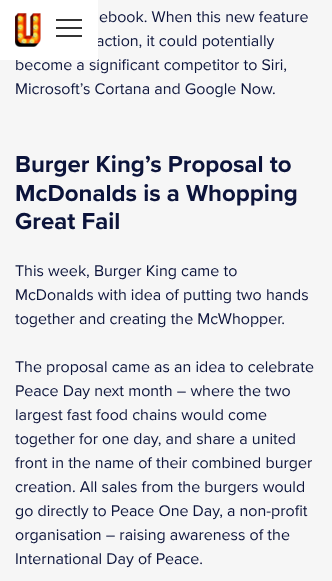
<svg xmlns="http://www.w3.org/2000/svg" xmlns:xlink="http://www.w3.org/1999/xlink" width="332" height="581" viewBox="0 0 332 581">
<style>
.cls-1{font:16px Proxima Nova;fill:#0c143b}
.cls-2{font:bold 24px Proxima Nova;fill:#0c143b}
</style>
<rect width="100%" height="100%" fill="#f6f6f6"/>
<text class="cls-1" x="99" y="22">ebook. When this new feature</text>
<text class="cls-1" x="96" y="46">action, it could potentially</text>
<text class="cls-1" x="15" y="70">become a significant competitor to Siri,</text>
<rect fill="#ffffff" x="0" y="0" width="98" height="60"/>
<rect fill="#343434" x="56" y="35" width="26" height="2"/>
<rect fill="#343434" x="56" y="19" width="26" height="2"/>
<rect fill="#343434" x="56" y="27" width="26" height="2"/>
<image xlink:href="image0.png" x="15" y="13" width="26" height="34"/>
<text class="cls-1" x="15" y="94">Microsoft’s Cortana and Google Now.</text>
<text class="cls-2"><tspan x="15" y="172">Burger King’s Proposal to</tspan><tspan x="15" y="201">McDonalds is a Whopping</tspan><tspan x="15" y="229">Great Fail</tspan></text>
<text class="cls-1"><tspan x="15" y="276">This week, Burger King came to</tspan><tspan x="15" y="300">McDonalds with idea of putting two hands</tspan><tspan x="15" y="324">together and creating the McWhopper.</tspan></text>
<text class="cls-1"><tspan x="15" y="372">The proposal came as an idea to celebrate</tspan><tspan x="15" y="396">Peace Day next month – where the two</tspan><tspan x="15" y="420">largest fast food chains would come</tspan><tspan x="15" y="444">together for one day, and share a united</tspan><tspan x="15" y="468">front in the name of their combined burger</tspan><tspan x="15" y="492">creation. All sales from the burgers would</tspan><tspan x="15" y="516">go directly to Peace One Day, a non-profit</tspan><tspan x="15" y="540">organisation – raising awareness of the</tspan><tspan x="15" y="564">International Day of Peace.</tspan></text>
</svg>
